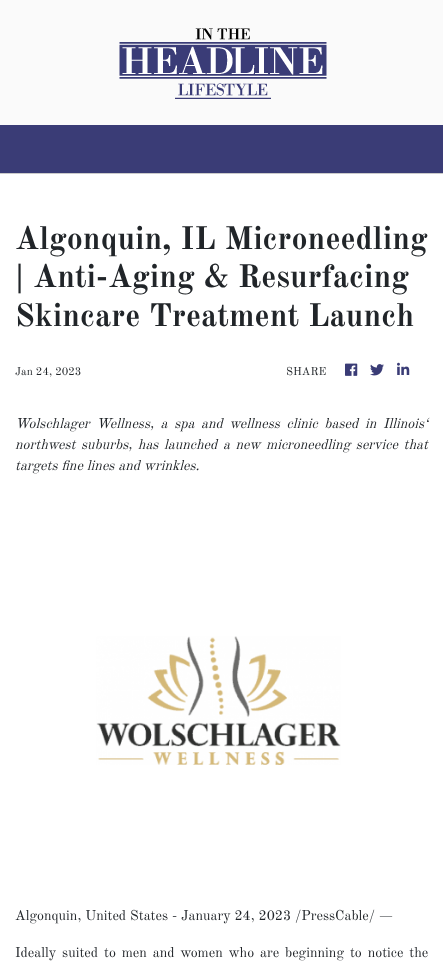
<svg xmlns="http://www.w3.org/2000/svg" xmlns:xlink="http://www.w3.org/1999/xlink" width="443" height="968" viewBox="0 0 443 968">
<style>
.cls-1{font:bold 32px Old Standard TT;fill:#212529}
.cls-2{font:11.25px Old Standard TT;fill:#212529}
.cls-3{font:italic 14px Old Standard TT;fill:#212529}
.cls-4{font:14px Old Standard TT;fill:#212529}
</style>
<rect width="100%" height="100%" fill="#ffffff"/>
<rect fill="#fafafa" x="0" y="0" width="443" height="125"/>
<image xlink:href="image0.png" x="119" y="28" width="208" height="71"/>
<rect fill="#3a3c76" x="0" y="125" width="443" height="48"/>
<rect fill="#cacaca" x="0" y="173" width="443" height="1"/>
<image xlink:href="image1.png" x="345" y="363" width="13" height="13"/>
<image xlink:href="image2.png" x="370" y="364" width="14" height="12"/>
<image xlink:href="image3.png" x="397" y="362" width="13" height="13"/>
<image xlink:href="image4.png" x="96" y="636" width="245" height="129"/>
<text class="cls-1"><tspan x="15" y="249">Algonquin, IL Microneedling</tspan><tspan x="15" y="287">| Anti-Aging &amp; Resurfacing</tspan><tspan x="15" y="326">Skincare Treatment Launch</tspan></text>
<text class="cls-2" x="15" y="375">Jan 24, 2023</text>
<text class="cls-2" x="286" y="375">SHARE</text>
<text class="cls-3"><tspan x="15" y="428" word-spacing="2.75">Wolschlager Wellness, a spa and wellness clinic based in Illinois‘</tspan><tspan x="15" y="449" word-spacing="1.75">northwest suburbs, has launched a new microneedling service that</tspan><tspan x="15" y="470">targets fine lines and wrinkles.</tspan></text>
<text class="cls-4" x="15" y="920">Algonquin, United States - January 24, 2023 /PressCable/ —</text>
<text class="cls-4" x="15" y="957" word-spacing="2">Ideally suited to men and women who are beginning to notice the</text>
</svg>
